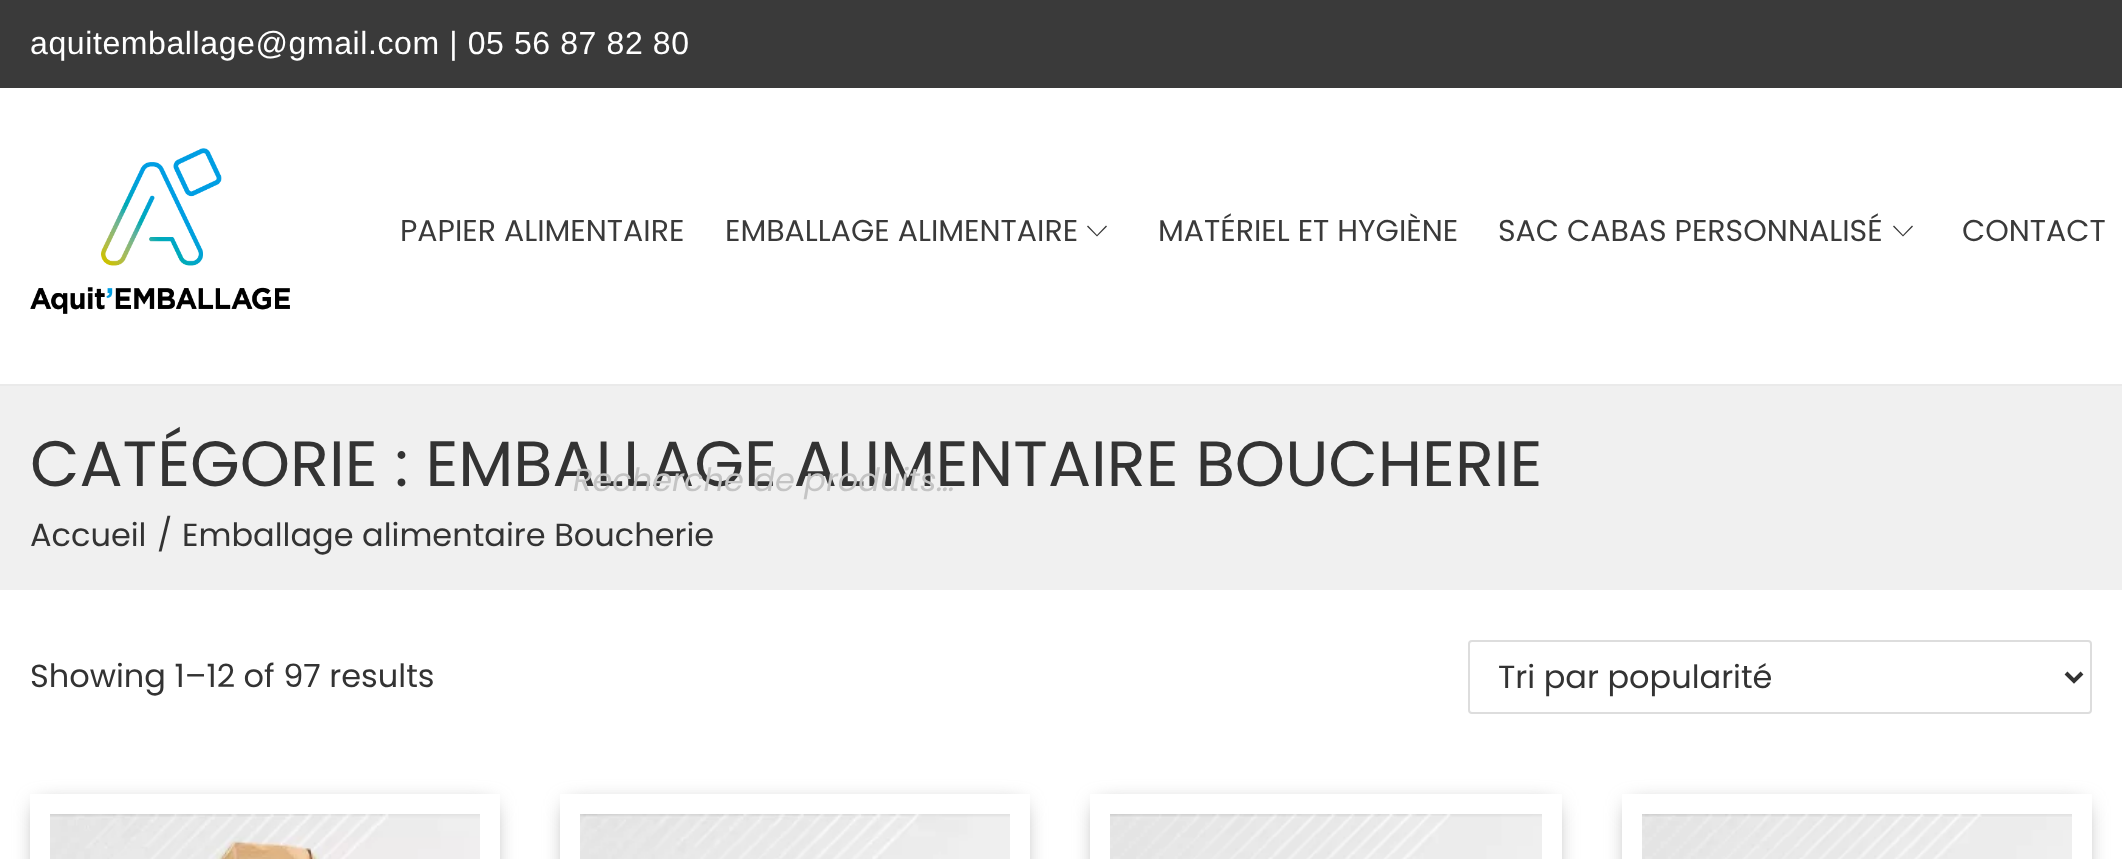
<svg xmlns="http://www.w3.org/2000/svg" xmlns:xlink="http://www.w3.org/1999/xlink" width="2122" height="859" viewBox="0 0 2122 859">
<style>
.cls-1{font:32px Liberation Sans;letter-spacing:0.6px;fill:#ffffff}
.cls-2{font:30px Poppins;fill:#3a3a3a}
.cls-3{font:64px Poppins;fill:#333333}
.cls-4{font:32px Poppins;fill:#333333}
.cls-5{font:italic 32px Poppins;fill:#c4c4c4}
</style>
<defs>
<clipPath id="clip1"><path d="M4 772H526V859H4ZM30 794H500V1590H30Z" clip-rule="evenodd"/></clipPath>
<clipPath id="clip2"><path d="M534 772H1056V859H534ZM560 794H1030V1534H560Z" clip-rule="evenodd"/></clipPath>
<clipPath id="clip3"><path d="M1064 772H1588V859H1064ZM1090 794H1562V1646H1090Z" clip-rule="evenodd"/></clipPath>
<clipPath id="clip4"><path d="M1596 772H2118V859H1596ZM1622 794H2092V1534H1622Z" clip-rule="evenodd"/></clipPath>
</defs>
<rect width="100%" height="100%" fill="#ffffff"/>
<rect fill="#3a3a3a" x="0" y="0" width="2122" height="88"/>
<rect fill="#eaeaea" x="0" y="384" width="2122" height="2"/>
<image xlink:href="image0.png" x="30" y="148" width="260" height="166"/>
<path fill="#3a3a3a" d="M1107 226.5L1097 236.5L1087 226.5L1088 225.5L1097 235L1106 225.5Z"/>
<path fill="#3a3a3a" d="M1913 226.5L1903 236.5L1893 226.5L1894 225.5L1903 235L1912 225.5Z"/>
<rect fill="#f0f0f0" x="0" y="386" width="2122" height="204"/>
<rect fill="none" stroke="#dddddd" stroke-width="2" x="1469" y="641" width="622" height="72" rx="3"/>
<path fill="none" stroke="#333333" stroke-width="4" d="M2066 673L2074 681L2082 673"/>
<g clip-path="url(#clip1)">
<rect fill="#8f8f8f" filter="blur(11px)" x="38" y="806" width="454" height="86"/>
</g>
<image xlink:href="image1.png" x="50" y="814" width="430" height="45"/>
<g clip-path="url(#clip2)">
<rect fill="#8f8f8f" filter="blur(11px)" x="568" y="806" width="454" height="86"/>
</g>
<image xlink:href="image2.png" x="580" y="814" width="430" height="45"/>
<g clip-path="url(#clip3)">
<rect fill="#8f8f8f" filter="blur(11px)" x="1098" y="806" width="456" height="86"/>
</g>
<image xlink:href="image3.png" x="1110" y="814" width="432" height="45"/>
<g clip-path="url(#clip4)">
<rect fill="#8f8f8f" filter="blur(11px)" x="1630" y="806" width="454" height="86"/>
</g>
<image xlink:href="image4.png" x="1642" y="814" width="430" height="45"/>
<text class="cls-1" x="30" y="54">aquitemballage@gmail.com | 05 56 87 82 80</text>
<text class="cls-2" x="400" y="241">PAPIER ALIMENTAIRE</text>
<text class="cls-2" x="725" y="241">EMBALLAGE ALIMENTAIRE</text>
<text class="cls-2" x="1158" y="241">MATÉRIEL ET HYGIÈNE</text>
<text class="cls-2" x="1498" y="241">SAC CABAS PERSONNALISÉ</text>
<text class="cls-2" x="1962" y="241">CONTACT</text>
<text class="cls-3" x="30" y="486">CATÉGORIE : EMBALLAGE ALIMENTAIRE BOUCHERIE</text>
<text class="cls-4" x="30" y="546">Accueil</text>
<text class="cls-4" x="157" y="546">/</text>
<text class="cls-4" x="182" y="546">Emballage alimentaire Boucherie</text>
<text class="cls-4" x="30" y="687">Showing 1–12 of 97 results</text>
<text class="cls-4" x="1498" y="688">Tri par popularité</text>
<text class="cls-5" x="573" y="491">Recherche de produits…</text>
</svg>
